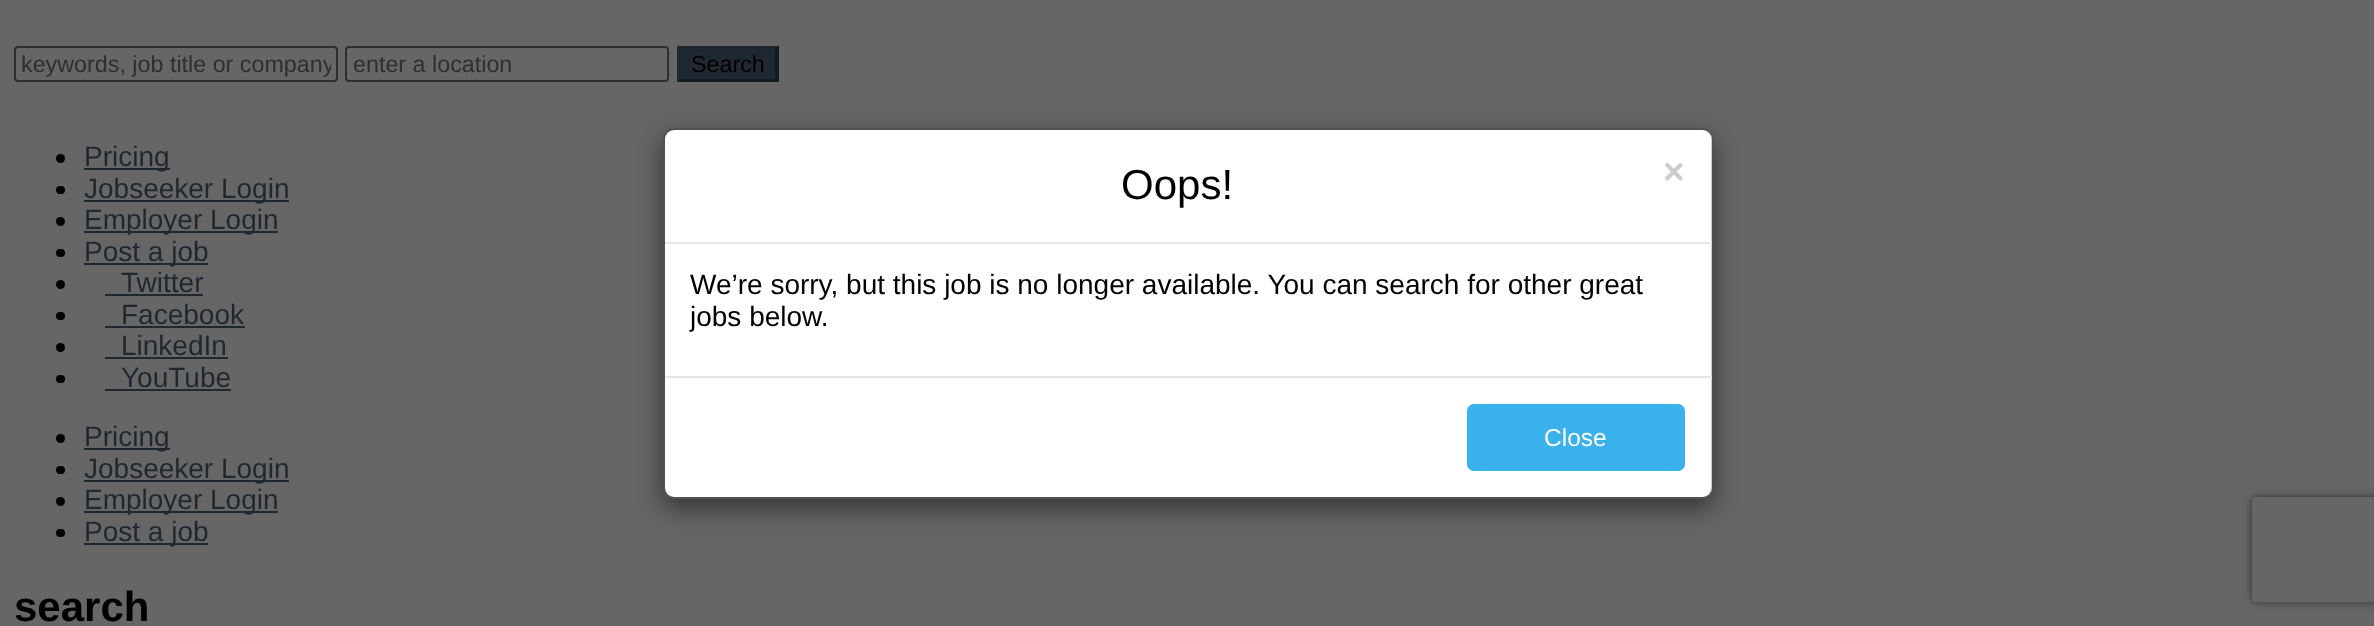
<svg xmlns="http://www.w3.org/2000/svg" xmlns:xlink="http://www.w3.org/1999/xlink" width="2374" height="626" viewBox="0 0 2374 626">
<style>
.cls-1{font:23.3px Liberation Sans;fill:#2f2f2f}
.cls-2{font:23.3px Liberation Sans;fill:#000000}
.cls-3{font:28px Liberation Sans;fill:#1f2831}
.cls-4{font:42px Liberation Sans;fill:#000000}
.cls-5{font:bold 37px Liberation Sans;fill:#cccccc}
.cls-6{font:28px Liberation Sans;fill:#000000}
.cls-7{font:24.5px Liberation Sans;fill:#ffffff}
.cls-8{font:bold 42px Liberation Sans;fill:#000000}
</style>
<defs>
<clipPath id="clip1"><path d="M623 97H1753V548H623ZM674 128H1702C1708 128 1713 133 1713 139V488C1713 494 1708 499 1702 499H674C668 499 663 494 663 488V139C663 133 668 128 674 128Z" clip-rule="evenodd"/></clipPath>
<clipPath id="clip2"><path d="M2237 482H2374V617H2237ZM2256 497H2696C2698 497 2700 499 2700 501V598C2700 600 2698 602 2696 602H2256C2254 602 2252 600 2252 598V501C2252 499 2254 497 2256 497Z" clip-rule="evenodd"/></clipPath>
<clipPath id="clip3"><rect x="21" y="51" width="310" height="26"/></clipPath>
</defs>
<rect width="100%" height="100%" fill="#666666"/>
<rect fill="none" stroke="#2f2f2f" stroke-width="2" x="15" y="47" width="322" height="34" rx="3"/>
<rect fill="none" stroke="#2f2f2f" stroke-width="2" x="346" y="47" width="322" height="34" rx="3"/>
<rect fill="#1f2831" x="677" y="46" width="102" height="36"/>
<path fill="#141a21" d="M779 45.5V82L775 79V49Z"/>
<path fill="#141a21" d="M779 82H677L681 79H775Z"/>
<path fill="#1f2831" d="M677 82V45.5L681 49V79Z"/>
<circle fill="#000000" cx="60.5" cy="158.5" r="4.5"/>
<rect fill="#1f2831" x="84" y="168" width="86" height="2"/>
<rect fill="#000000" x="56" y="186" width="9" height="8" rx="4"/>
<rect fill="#1f2831" x="84" y="200" width="205" height="2"/>
<circle fill="#000000" cx="60.5" cy="221.5" r="4.5"/>
<rect fill="#1f2831" x="84" y="231" width="194" height="2"/>
<rect fill="#000000" x="56" y="249" width="9" height="8" rx="4"/>
<rect fill="#1f2831" x="84" y="263" width="124" height="2"/>
<circle fill="#000000" cx="60.5" cy="284.5" r="4.5"/>
<rect fill="#1f2831" x="105" y="294" width="98" height="2"/>
<rect fill="#000000" x="56" y="312" width="9" height="8" rx="4"/>
<rect fill="#1f2831" x="105" y="326" width="140" height="2"/>
<circle fill="#000000" cx="60.5" cy="347.5" r="4.5"/>
<rect fill="#1f2831" x="105" y="357" width="123" height="2"/>
<rect fill="#000000" x="56" y="375" width="9" height="8" rx="4"/>
<rect fill="#1f2831" x="105" y="389" width="126" height="2"/>
<circle fill="#000000" cx="60.5" cy="438.5" r="4.5"/>
<rect fill="#1f2831" x="84" y="448" width="86" height="2"/>
<rect fill="#000000" x="56" y="466" width="9" height="8" rx="4"/>
<rect fill="#1f2831" x="84" y="480" width="205" height="2"/>
<circle fill="#000000" cx="60.5" cy="501.5" r="4.5"/>
<rect fill="#1f2831" x="84" y="511" width="194" height="2"/>
<rect fill="#000000" x="56" y="529" width="9" height="8" rx="4"/>
<rect fill="#1f2831" x="84" y="543" width="124" height="2"/>
<g clip-path="url(#clip1)">
<rect fill="#000000" fill-opacity="0.5" filter="blur(13px)" x="663" y="137" width="1050" height="371" rx="11"/>
</g>
<rect fill="#ffffff" x="665" y="130" width="1047" height="367" rx="9"/>
<rect fill="none" stroke="#000000" stroke-opacity="0.2" stroke-width="2" x="664" y="129" width="1048" height="369" rx="10"/>
<rect fill="#e5e5e5" x="665" y="242" width="1047" height="2"/>
<rect fill="#e5e5e5" x="665" y="376" width="1047" height="2"/>
<rect fill="#38b1ec" x="1467" y="404" width="218" height="67" rx="7"/>
<g clip-path="url(#clip2)">
<rect fill="#333333" filter="blur(4.5px)" x="2252" y="497" width="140" height="105" rx="4"/>
</g>
<g clip-path="url(#clip3)">
<text class="cls-1" x="21" y="72">keywords, job title or company</text>
</g>
<text class="cls-1" x="353" y="72">enter a location</text>
<text class="cls-2" x="691" y="72">Search</text>
<text class="cls-3"><tspan x="84" y="166">Pricing</tspan><tspan x="84" y="198">Jobseeker Login</tspan><tspan x="84" y="229">Employer Login</tspan><tspan x="84" y="261">Post a job</tspan></text>
<text class="cls-3"><tspan x="121" y="292">Twitter</tspan><tspan x="121" y="324">Facebook</tspan><tspan x="121" y="355">LinkedIn</tspan><tspan x="121" y="387">YouTube</tspan></text>
<text class="cls-3"><tspan x="84" y="446">Pricing</tspan><tspan x="84" y="478">Jobseeker Login</tspan><tspan x="84" y="509">Employer Login</tspan><tspan x="84" y="541">Post a job</tspan></text>
<text class="cls-4" x="1121" y="199">Oops!</text>
<text class="cls-5" x="1663" y="184">×</text>
<text class="cls-6"><tspan x="690" y="294">We’re sorry, but this job is no longer available. You can search for other great</tspan><tspan x="690" y="326">jobs below.</tspan></text>
<text class="cls-7" x="1544" y="446">Close</text>
<text class="cls-8" x="14" y="621">search</text>
</svg>
